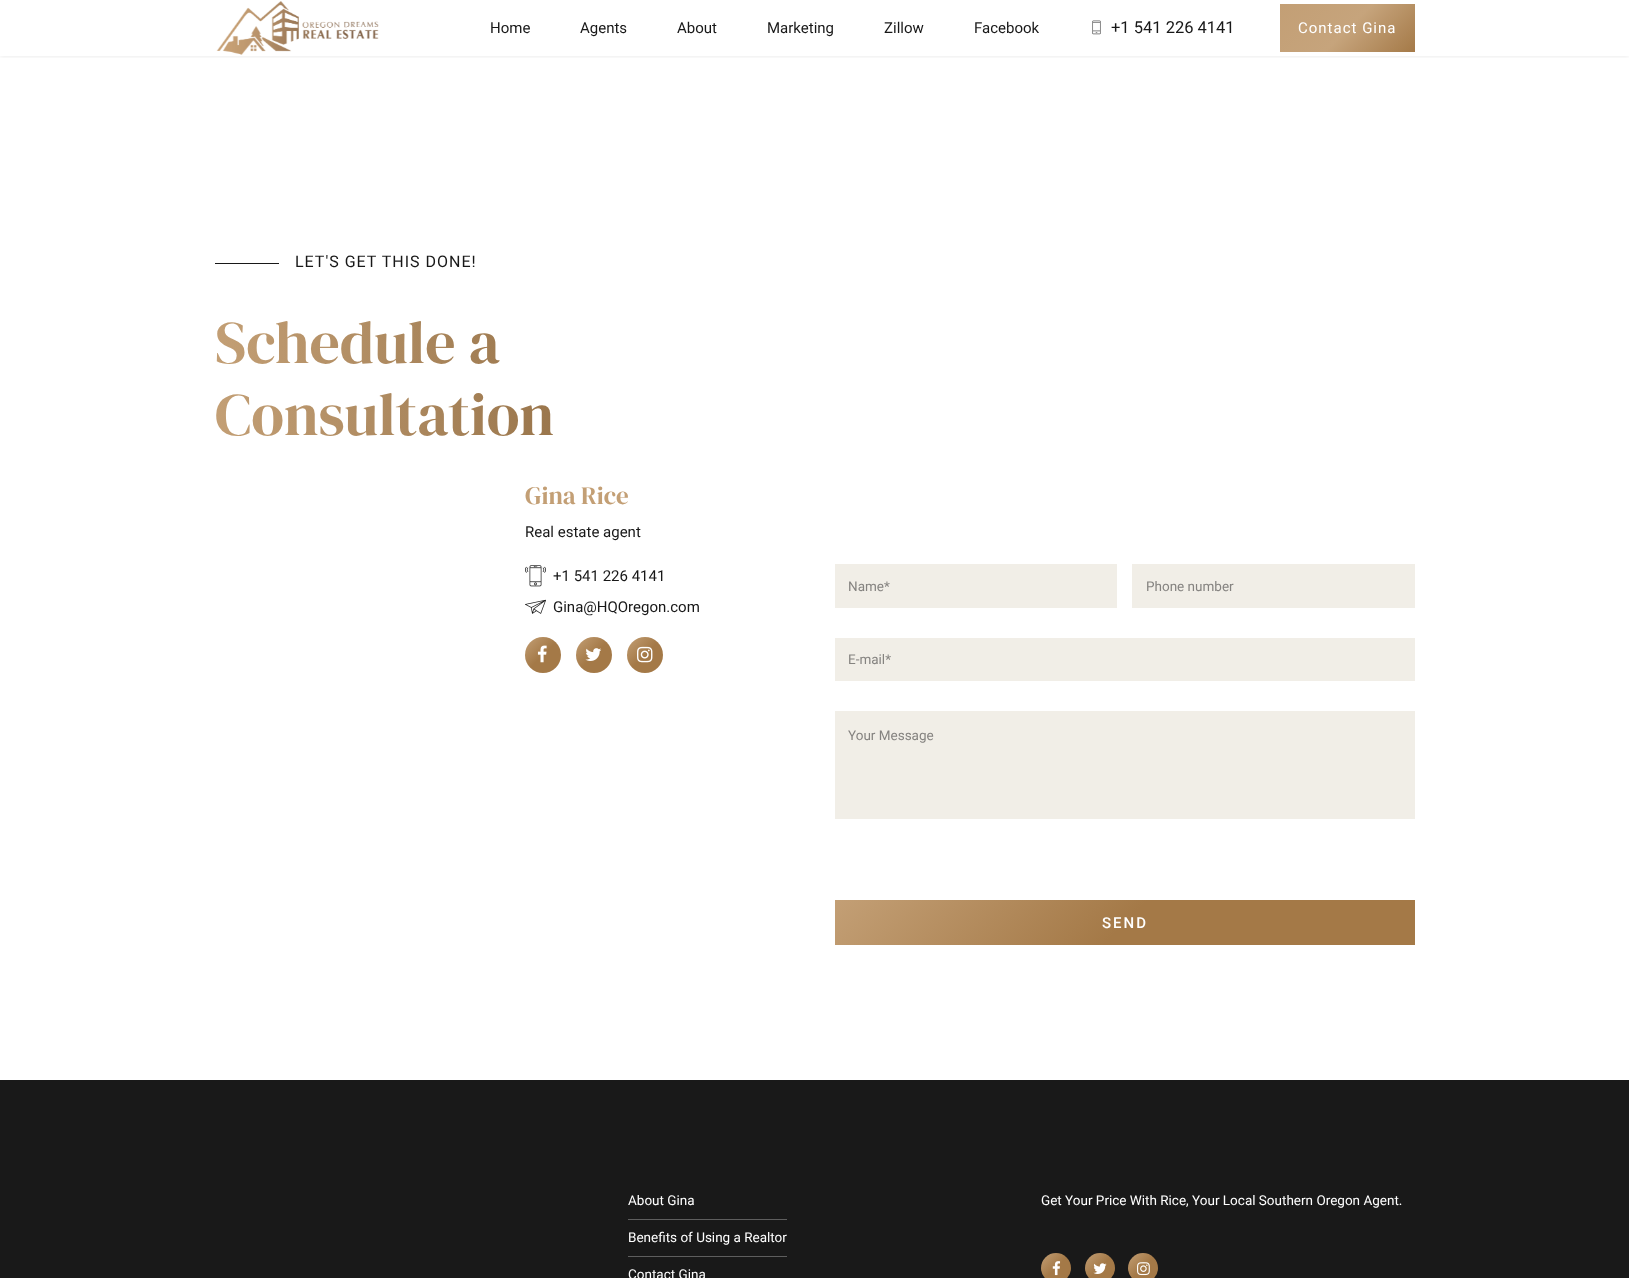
<svg xmlns="http://www.w3.org/2000/svg" xmlns:xlink="http://www.w3.org/1999/xlink" width="1629" height="1278" viewBox="0 0 1629 1278">
<style>
.cls-1{font:15px Roboto;fill:#181818}
.cls-2{font:16.5px Roboto;fill:#181818}
.cls-3{font:15px Roboto;letter-spacing:1px;fill:#ffffff}
.cls-4{font:16px Roboto;letter-spacing:1px;fill:#181818}
.cls-5{font:60px DM Serif Display;fill:url(#g1)}
.cls-6{font:25px DM Serif Display;fill:#c39f75}
.cls-7{font:13.5px Roboto;fill:#858380}
.cls-8{font:500 15px Roboto;letter-spacing:2px;fill:#ffffff}
.cls-9{font:13.5px Roboto;fill:#ffffff}
</style>
<defs>
<clipPath id="clip1"><rect x="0" y="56" width="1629" height="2"/></clipPath>
<linearGradient id="g1" gradientUnits="userSpaceOnUse" x1="215" y1="378" x2="795" y2="378"><stop offset="0" stop-color="#c39f75"/><stop offset="0.8" stop-color="#8b673d"/></linearGradient>
<linearGradient id="g2" gradientUnits="userSpaceOnUse" x1="1324" y1="-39" x2="1507" y2="144"><stop offset="0" stop-color="#c39f75"/><stop offset="0.25" stop-color="#c6a47c"/><stop offset="0.5" stop-color="#a47947"/><stop offset="0.75" stop-color="#c39f75"/><stop offset="1" stop-color="#8b673d"/></linearGradient>
<linearGradient id="g3" gradientUnits="userSpaceOnUse" x1="525" y1="637" x2="597" y2="709"><stop offset="0" stop-color="#c39f75"/><stop offset="0.25" stop-color="#a47947"/><stop offset="0.5" stop-color="#a47947"/><stop offset="0.75" stop-color="#c39f75"/><stop offset="1" stop-color="#8b673d"/></linearGradient>
<linearGradient id="g4" gradientUnits="userSpaceOnUse" x1="576" y1="637" x2="648" y2="709"><stop offset="0" stop-color="#c39f75"/><stop offset="0.25" stop-color="#a47947"/><stop offset="0.5" stop-color="#a47947"/><stop offset="0.75" stop-color="#c39f75"/><stop offset="1" stop-color="#8b673d"/></linearGradient>
<linearGradient id="g5" gradientUnits="userSpaceOnUse" x1="627" y1="637" x2="699" y2="709"><stop offset="0" stop-color="#c39f75"/><stop offset="0.25" stop-color="#a47947"/><stop offset="0.5" stop-color="#a47947"/><stop offset="0.75" stop-color="#c39f75"/><stop offset="1" stop-color="#8b673d"/></linearGradient>
<linearGradient id="g6" gradientUnits="userSpaceOnUse" x1="1103" y1="633" x2="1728" y2="1258"><stop offset="0" stop-color="#c39f75"/><stop offset="0.25" stop-color="#a47947"/><stop offset="0.5" stop-color="#a47947"/><stop offset="0.75" stop-color="#c39f75"/><stop offset="1" stop-color="#8b673d"/></linearGradient>
<linearGradient id="g7" gradientUnits="userSpaceOnUse" x1="1041" y1="1253" x2="1101" y2="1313"><stop offset="0" stop-color="#c39f75"/><stop offset="0.25" stop-color="#a47947"/><stop offset="0.5" stop-color="#a47947"/><stop offset="0.75" stop-color="#c39f75"/><stop offset="1" stop-color="#8b673d"/></linearGradient>
<linearGradient id="g8" gradientUnits="userSpaceOnUse" x1="1085" y1="1253" x2="1145" y2="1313"><stop offset="0" stop-color="#c39f75"/><stop offset="0.25" stop-color="#a47947"/><stop offset="0.5" stop-color="#a47947"/><stop offset="0.75" stop-color="#c39f75"/><stop offset="1" stop-color="#8b673d"/></linearGradient>
<linearGradient id="g9" gradientUnits="userSpaceOnUse" x1="1128" y1="1253" x2="1188" y2="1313"><stop offset="0" stop-color="#c39f75"/><stop offset="0.25" stop-color="#a47947"/><stop offset="0.5" stop-color="#a47947"/><stop offset="0.75" stop-color="#c39f75"/><stop offset="1" stop-color="#8b673d"/></linearGradient>
</defs>
<rect width="100%" height="100%" fill="#ffffff"/>
<g clip-path="url(#clip1)">
<rect fill="#000000" fill-opacity="0.1" filter="blur(2.5px)" x="0" y="0" width="1629" height="56"/>
</g>
<image xlink:href="image0.png" x="216" y="1" width="163" height="54"/>
<image xlink:href="image1.png" x="1092" y="20" width="9" height="15"/>
<rect fill="url(#g2)" x="1280" y="4" width="135" height="48"/>
<rect fill="#181818" x="215" y="263" width="64" height="1"/>
<image xlink:href="image2.png" x="525" y="565" width="21" height="22"/>
<image xlink:href="image3.png" x="525" y="599" width="21" height="15"/>
<circle fill="url(#g3)" cx="543" cy="655" r="18"/>
<image xlink:href="image4.png" x="537" y="645" width="10" height="18"/>
<circle fill="url(#g4)" cx="594" cy="655" r="18"/>
<image xlink:href="image5.png" x="585" y="648" width="17" height="13"/>
<circle fill="url(#g5)" cx="645" cy="655" r="18"/>
<image xlink:href="image6.png" x="637" y="646" width="16" height="17"/>
<rect fill="#f1eee7" x="835" y="564" width="282" height="44"/>
<rect fill="#f1eee7" x="1132" y="564" width="283" height="44"/>
<rect fill="#f1eee7" x="835" y="638" width="580" height="43"/>
<rect fill="#f1eee7" x="835" y="711" width="580" height="108"/>
<rect fill="url(#g6)" x="835" y="900" width="580" height="45"/>
<rect fill="#191919" x="0" y="1080" width="1629" height="198"/>
<rect fill="#5e5e5e" x="628" y="1219" width="159" height="1"/>
<rect fill="#5e5e5e" x="628" y="1256" width="159" height="1"/>
<circle fill="url(#g7)" cx="1056" cy="1268" r="15"/>
<image xlink:href="image7.png" x="1052" y="1261" width="9" height="15"/>
<circle fill="url(#g8)" cx="1100" cy="1268" r="15"/>
<image xlink:href="image8.png" x="1093" y="1263" width="14" height="11"/>
<circle fill="url(#g9)" cx="1143" cy="1268" r="15"/>
<image xlink:href="image9.png" x="1137" y="1262" width="13" height="14"/>
<text class="cls-1" x="490" y="33">Home</text>
<text class="cls-1" x="580" y="33">Agents</text>
<text class="cls-1" x="677" y="33">About</text>
<text class="cls-1" x="767" y="33">Marketing</text>
<text class="cls-1" x="884" y="33">Zillow</text>
<text class="cls-1" x="974" y="33">Facebook</text>
<text class="cls-2" x="1111" y="33">+1 541 226 4141</text>
<text class="cls-3" x="1298" y="33">Contact Gina</text>
<text class="cls-4" x="295" y="267">LET'S GET THIS DONE!</text>
<text class="cls-5"><tspan x="215" y="363">Schedule a</tspan><tspan x="215" y="435">Consultation</tspan></text>
<text class="cls-6" x="525" y="504">Gina Rice</text>
<text class="cls-1" x="525" y="537">Real estate agent</text>
<text class="cls-1" x="553" y="581">+1 541 226 4141</text>
<text class="cls-1" x="553" y="612">Gina@HQOregon.com</text>
<text class="cls-7" x="848" y="591">Name*</text>
<text class="cls-7" x="1146" y="591">Phone number</text>
<text class="cls-7" x="848" y="664">E-mail*</text>
<text class="cls-7" x="848" y="740">Your Message</text>
<text class="cls-8" x="1102" y="928">SEND</text>
<text class="cls-9" x="628" y="1205">About Gina</text>
<text class="cls-9" x="628" y="1242">Benefits of Using a Realtor</text>
<text class="cls-9" x="628" y="1279">Contact Gina</text>
<text class="cls-9" x="1041" y="1205">Get Your Price With Rice, Your Local Southern Oregon Agent.</text>
</svg>
